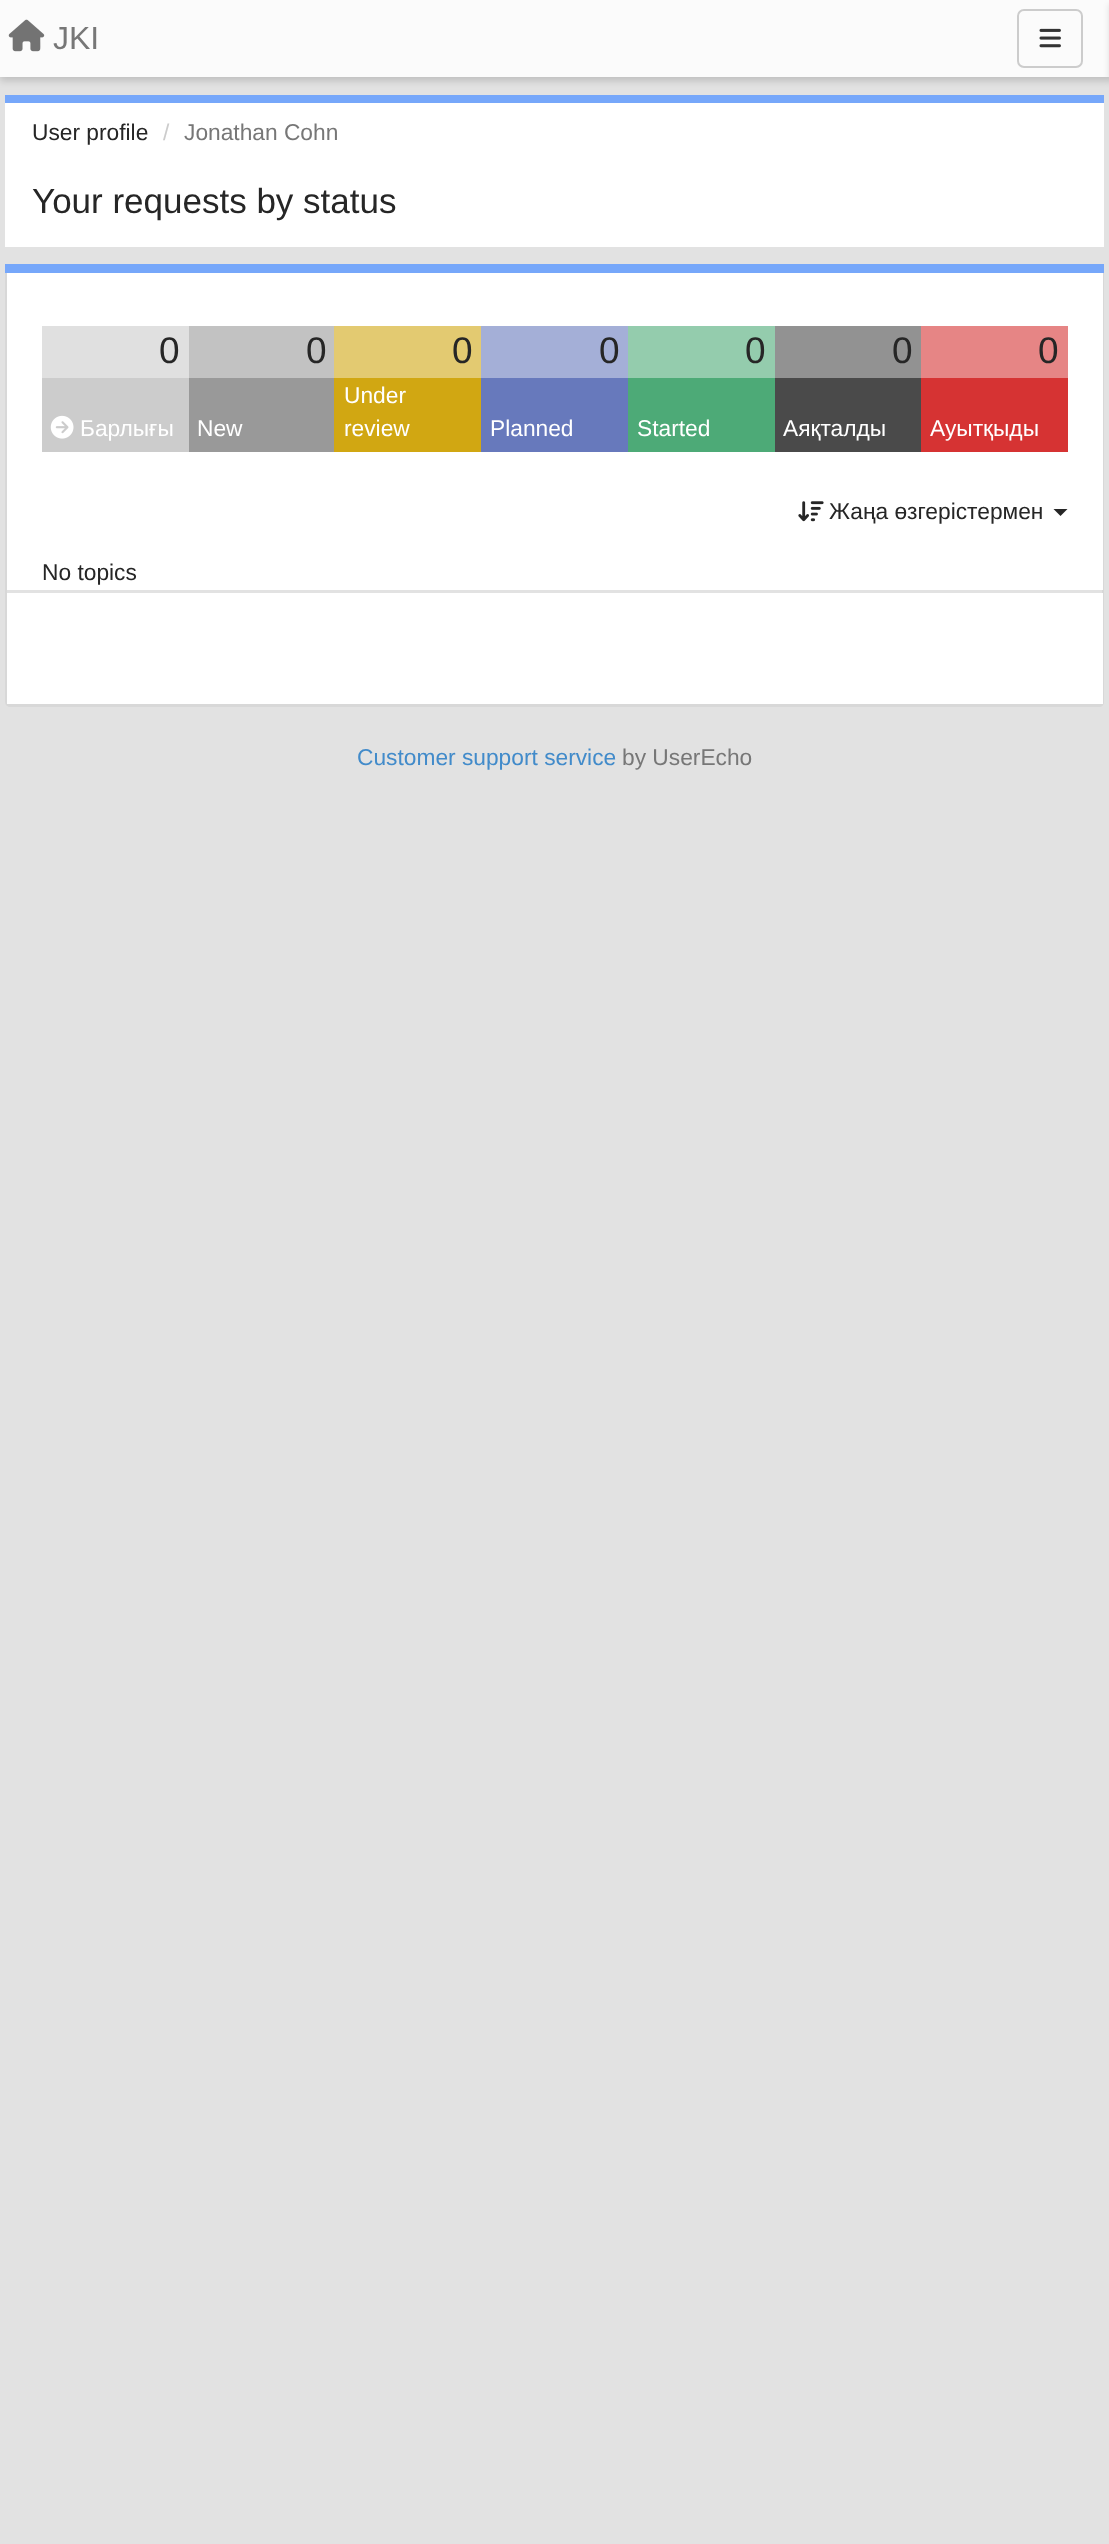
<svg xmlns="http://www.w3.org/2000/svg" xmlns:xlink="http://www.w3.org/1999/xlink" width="1109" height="2544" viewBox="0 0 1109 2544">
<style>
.cls-1{font:32px Liberation Sans;fill:#777777}
.cls-2{font:22.75px Liberation Sans;fill:#262626}
.cls-3{font:22.75px Liberation Sans;fill:#cccccc}
.cls-4{font:22.75px Liberation Sans;fill:#777777}
.cls-5{font:35px Liberation Sans;fill:#262626}
.cls-6{font:37px Liberation Sans;fill:#262626}
.cls-7{font:22.75px Liberation Sans;fill:#ffffff}
.cls-8{font:22.75px Liberation Sans;fill:#428bca}
</style>
<rect width="100%" height="100%" fill="#e2e2e2"/>
<rect fill="#000000" fill-opacity="0.15" filter="blur(3.5px)" x="0" y="4" width="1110" height="77"/>
<rect fill="#fbfbfb" x="0" y="0" width="1109" height="77"/>
<image xlink:href="image0.png" x="8" y="19" width="37" height="33"/>
<rect fill="none" stroke="#cccccc" stroke-width="2" x="1018" y="10" width="64" height="57" rx="6"/>
<image xlink:href="image1.png" x="1039" y="28" width="22" height="20"/>
<rect fill="#000000" fill-opacity="0.15" filter="blur(3.5px)" x="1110" y="4" width="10" height="77"/>
<rect fill="#ffffff" x="5" y="103" width="1099" height="144"/>
<rect fill="#76a7fa" x="5" y="95" width="1099" height="8"/>
<rect fill="#76a7fa" x="5" y="264" width="1099" height="9"/>
<path fill="#d8d8d8" fill-rule="evenodd" d="M5 273H1104V702C1104 705 1102 707 1099 707H10C8 707 5 705 5 702ZM7 273H1102V702C1102 703 1101 704 1099 704H10C9 704 7 703 7 702Z"/>
<rect fill="#ffffff" x="7" y="273" width="1096" height="317"/>
<rect fill="#e0e0e0" x="42" y="326" width="147" height="52"/>
<rect fill="#c2c2c2" x="189" y="326" width="145" height="52"/>
<rect fill="#e3ca71" x="334" y="326" width="147" height="52"/>
<rect fill="#a4afd7" x="481" y="326" width="147" height="52"/>
<rect fill="#94ccad" x="628" y="326" width="147" height="52"/>
<rect fill="#929292" x="775" y="326" width="146" height="52"/>
<rect fill="#e68585" x="921" y="326" width="147" height="52"/>
<rect fill="#cccccc" x="42" y="378" width="147" height="74"/>
<image xlink:href="image2.png" x="50" y="415" width="24" height="24"/>
<rect fill="#999999" x="189" y="378" width="145" height="74"/>
<rect fill="#d1a712" x="334" y="378" width="147" height="74"/>
<rect fill="#6779bc" x="481" y="378" width="147" height="74"/>
<rect fill="#4daa77" x="628" y="378" width="147" height="74"/>
<rect fill="#4a4a4a" x="775" y="378" width="146" height="74"/>
<rect fill="#d63333" x="921" y="378" width="147" height="74"/>
<image xlink:href="image3.png" x="798" y="501" width="26" height="21"/>
<path fill="#262626" d="M1053.5 509H1067.5L1060.5 516Z"/>
<rect fill="#ffffff" x="7" y="593" width="1096" height="111"/>
<text class="cls-1" x="53" y="49">JKI</text>
<text class="cls-2" x="32" y="140">User profile</text>
<text class="cls-3" x="163" y="140">/</text>
<text class="cls-4" x="184" y="140">Jonathan Cohn</text>
<text class="cls-5" x="32" y="213">Your requests by status</text>
<text class="cls-6" x="159" y="363">0</text>
<text class="cls-6" x="306" y="363">0</text>
<text class="cls-6" x="452" y="363">0</text>
<text class="cls-6" x="599" y="363">0</text>
<text class="cls-6" x="745" y="363">0</text>
<text class="cls-6" x="892" y="363">0</text>
<text class="cls-6" x="1038" y="363">0</text>
<text class="cls-7" x="80" y="436">Барлығы</text>
<text class="cls-7" x="197" y="436">New</text>
<text class="cls-7"><tspan x="344" y="403">Under</tspan><tspan x="344" y="436">review</tspan></text>
<text class="cls-7" x="490" y="436">Planned</text>
<text class="cls-7" x="637" y="436">Started</text>
<text class="cls-7" x="783" y="436">Аяқталды</text>
<text class="cls-7" x="930" y="436">Ауытқыды</text>
<text class="cls-2" x="829" y="519">Жаңа өзгерістермен</text>
<text class="cls-2" x="42" y="580">No topics</text>
<text class="cls-8" x="357" y="765">Customer support service</text>
<text class="cls-4" x="622" y="765">by UserEcho</text>
</svg>
